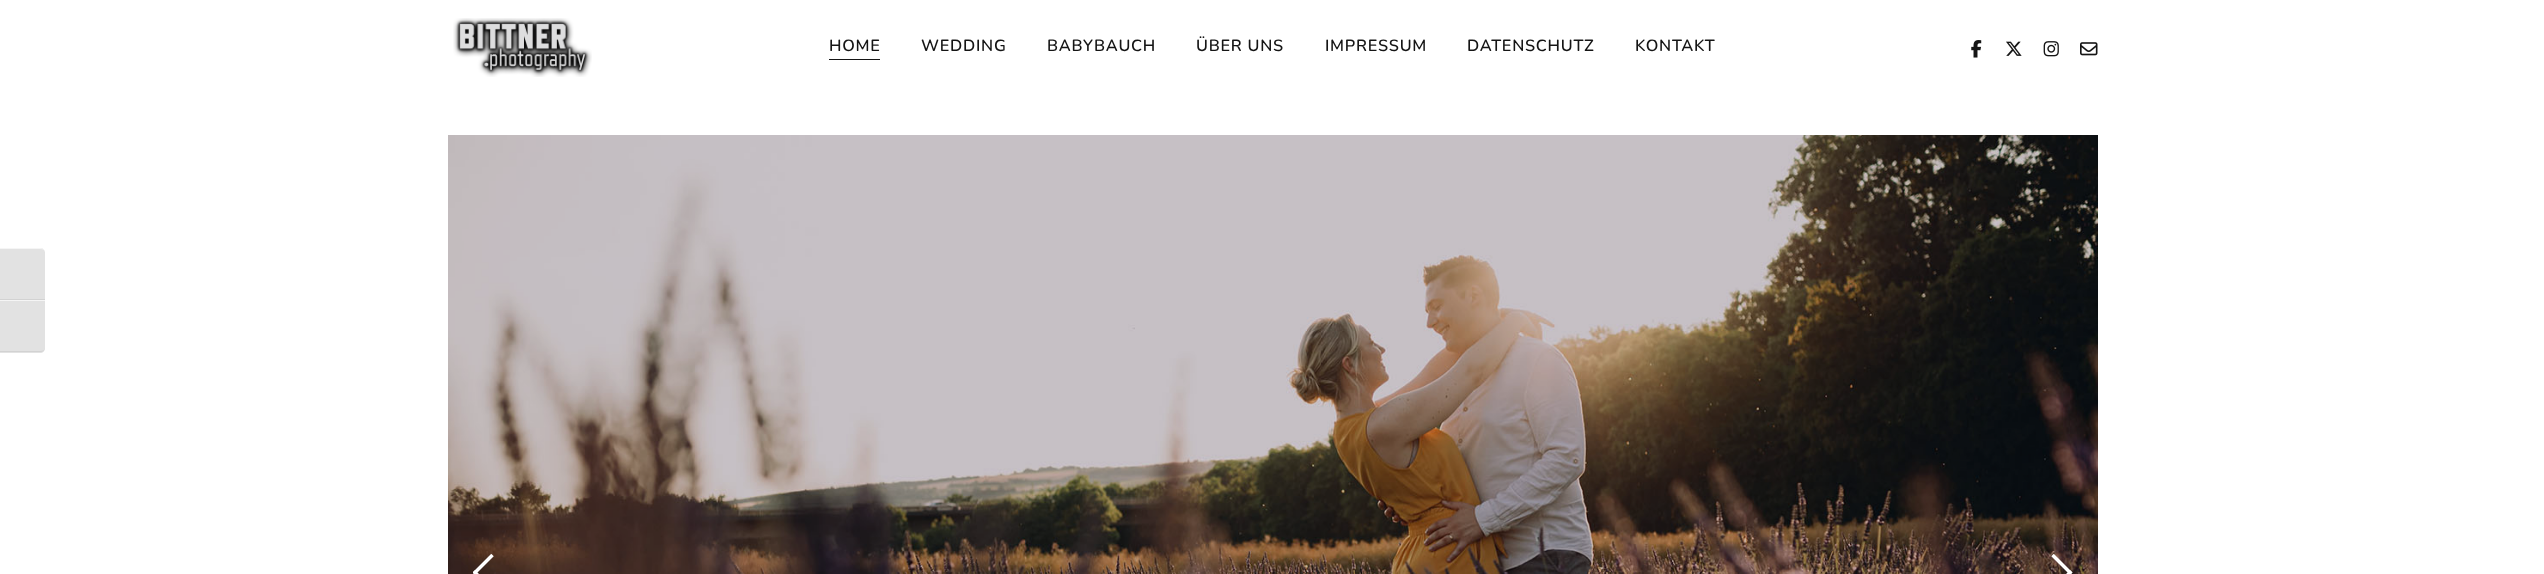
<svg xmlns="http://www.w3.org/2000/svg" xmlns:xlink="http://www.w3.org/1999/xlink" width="2544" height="574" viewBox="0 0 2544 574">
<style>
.cls-1{font:600 16.25px Nunito;letter-spacing:0.75px;fill:#151515}
</style>
<rect width="100%" height="100%" fill="#ffffff"/>
<image xlink:href="image0.png" x="453" y="18" width="139" height="59"/>
<rect fill="#151515" x="829" y="59" width="51" height="1"/>
<image xlink:href="image1.png" x="1971" y="40" width="11" height="18"/>
<image xlink:href="image2.png" x="2006" y="41" width="16" height="15"/>
<image xlink:href="image3.png" x="2043" y="41" width="16" height="16"/>
<image xlink:href="image4.png" x="2080" y="42" width="18" height="14"/>
<path fill="#e2e2e2" d="M0 248H40C43 248 45 250 45 253V300H0Z"/>
<path fill="#f5f5f5" d="M0 249H40C43 249 45 250 45 252C45 250 43 248 40 248H0Z"/>
<rect fill="#d2d2d2" x="0" y="299" width="45" height="1"/>
<path fill="#e2e2e2" d="M0 300H45V348C45 351 43 353 40 353H0Z"/>
<rect fill="#f5f5f5" x="0" y="300" width="45" height="1"/>
<path fill="#d2d2d2" d="M0 351V352H40C43 352 45 350 45 348C45 350 43 351 40 351Z"/>
<image xlink:href="image5.png" x="448" y="135" width="1650" height="439"/>
<image xlink:href="image6.png" x="473" y="554" width="21" height="20"/>
<image xlink:href="image7.png" x="2051" y="554" width="22" height="20"/>
<text class="cls-1" x="829" y="51">HOME</text>
<text class="cls-1" x="921" y="51">WEDDING</text>
<text class="cls-1" x="1047" y="51">BABYBAUCH</text>
<text class="cls-1" x="1196" y="51">ÜBER UNS</text>
<text class="cls-1" x="1325" y="51">IMPRESSUM</text>
<text class="cls-1" x="1467" y="51">DATENSCHUTZ</text>
<text class="cls-1" x="1635" y="51">KONTAKT</text>
</svg>
